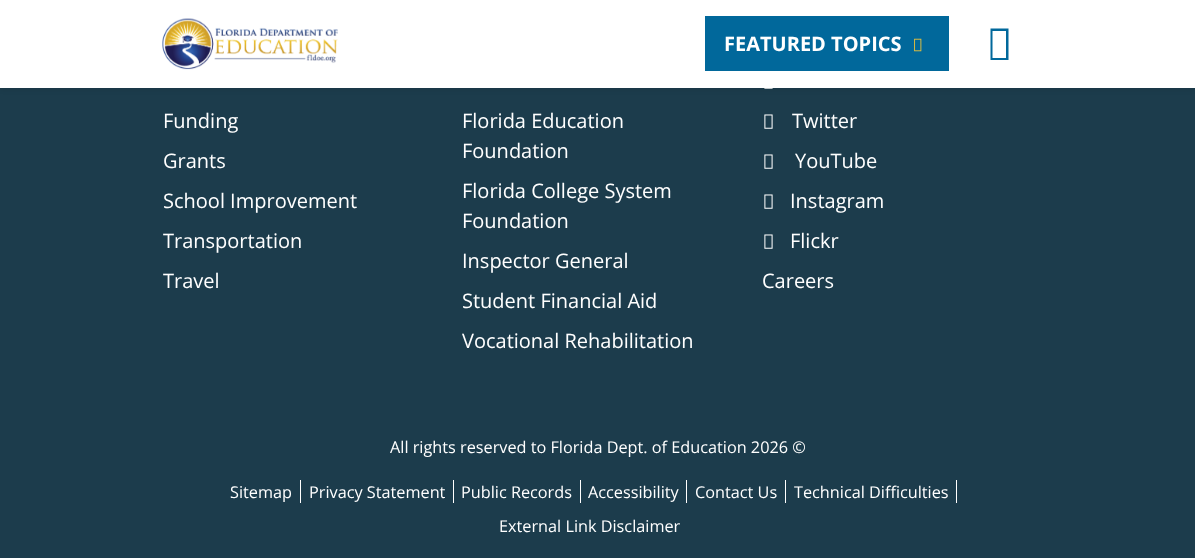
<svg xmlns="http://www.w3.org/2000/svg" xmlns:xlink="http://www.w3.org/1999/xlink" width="1195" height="558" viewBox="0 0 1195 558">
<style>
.cls-1{font:bold 20px Open Sans;fill:#ffffff}
.cls-2{font:20px Open Sans;fill:#ffffff}
.cls-3{font:16.25px Open Sans;fill:#ffffff}
</style>
<rect width="100%" height="100%" fill="#1c3c4c"/>
<image xlink:href="image2.png" x="764" y="88" width="9" height="1"/>
<rect fill="#000000" fill-opacity="0.07" filter="blur(2.5px)" x="0" y="3" width="1195" height="87"/>
<rect fill="#ffffff" x="0" y="0" width="1195" height="88"/>
<image xlink:href="image0.png" x="162" y="18" width="176" height="52"/>
<rect fill="#01689b" x="705" y="16" width="244" height="55"/>
<image xlink:href="image1.png" x="914" y="38" width="8" height="14"/>
<path fill="#01689b" d="M990.5 60V28.5H1008.5V60ZM992.5 58H1006V31H992.5Z"/>
<image xlink:href="image3.png" x="764" y="114" width="9" height="15"/>
<image xlink:href="image3.png" x="764" y="154" width="9" height="15"/>
<image xlink:href="image3.png" x="764" y="194" width="9" height="15"/>
<image xlink:href="image3.png" x="764" y="234" width="9" height="15"/>
<rect fill="#ffffff" x="300" y="480" width="1" height="23"/>
<rect fill="#ffffff" x="453" y="480" width="1" height="23"/>
<rect fill="#ffffff" x="580" y="480" width="1" height="23"/>
<rect fill="#ffffff" x="686" y="480" width="1" height="23"/>
<rect fill="#ffffff" x="785" y="480" width="1" height="23"/>
<rect fill="#ffffff" x="956" y="480" width="1" height="23"/>
<text class="cls-1" x="724" y="51">FEATURED TOPICS</text>
<text class="cls-2" x="163" y="128">Funding</text>
<text class="cls-2" x="163" y="168">Grants</text>
<text class="cls-2" x="163" y="208">School Improvement</text>
<text class="cls-2" x="163" y="248">Transportation</text>
<text class="cls-2" x="163" y="288">Travel</text>
<text class="cls-2"><tspan x="462" y="128">Florida Education</tspan><tspan x="462" y="158">Foundation</tspan></text>
<text class="cls-2"><tspan x="462" y="198">Florida College System</tspan><tspan x="462" y="228">Foundation</tspan></text>
<text class="cls-2" x="462" y="268">Inspector General</text>
<text class="cls-2" x="462" y="308">Student Financial Aid</text>
<text class="cls-2" x="462" y="348">Vocational Rehabilitation</text>
<text class="cls-2" x="792" y="128">Twitter</text>
<text class="cls-2" x="795" y="168">YouTube</text>
<text class="cls-2" x="790" y="208">Instagram</text>
<text class="cls-2" x="790" y="248">Flickr</text>
<text class="cls-2" x="762" y="288">Careers</text>
<text class="cls-3" x="390" y="453">All rights reserved to Florida Dept. of Education 2026 ©</text>
<text class="cls-3" x="230" y="498">Sitemap</text>
<text class="cls-3" x="309" y="498">Privacy Statement</text>
<text class="cls-3" x="461" y="498">Public Records</text>
<text class="cls-3" x="588" y="498">Accessibility</text>
<text class="cls-3" x="695" y="498">Contact Us</text>
<text class="cls-3" x="794" y="498">Technical Difficulties</text>
<text class="cls-3" x="499" y="532">External Link Disclaimer</text>
</svg>
